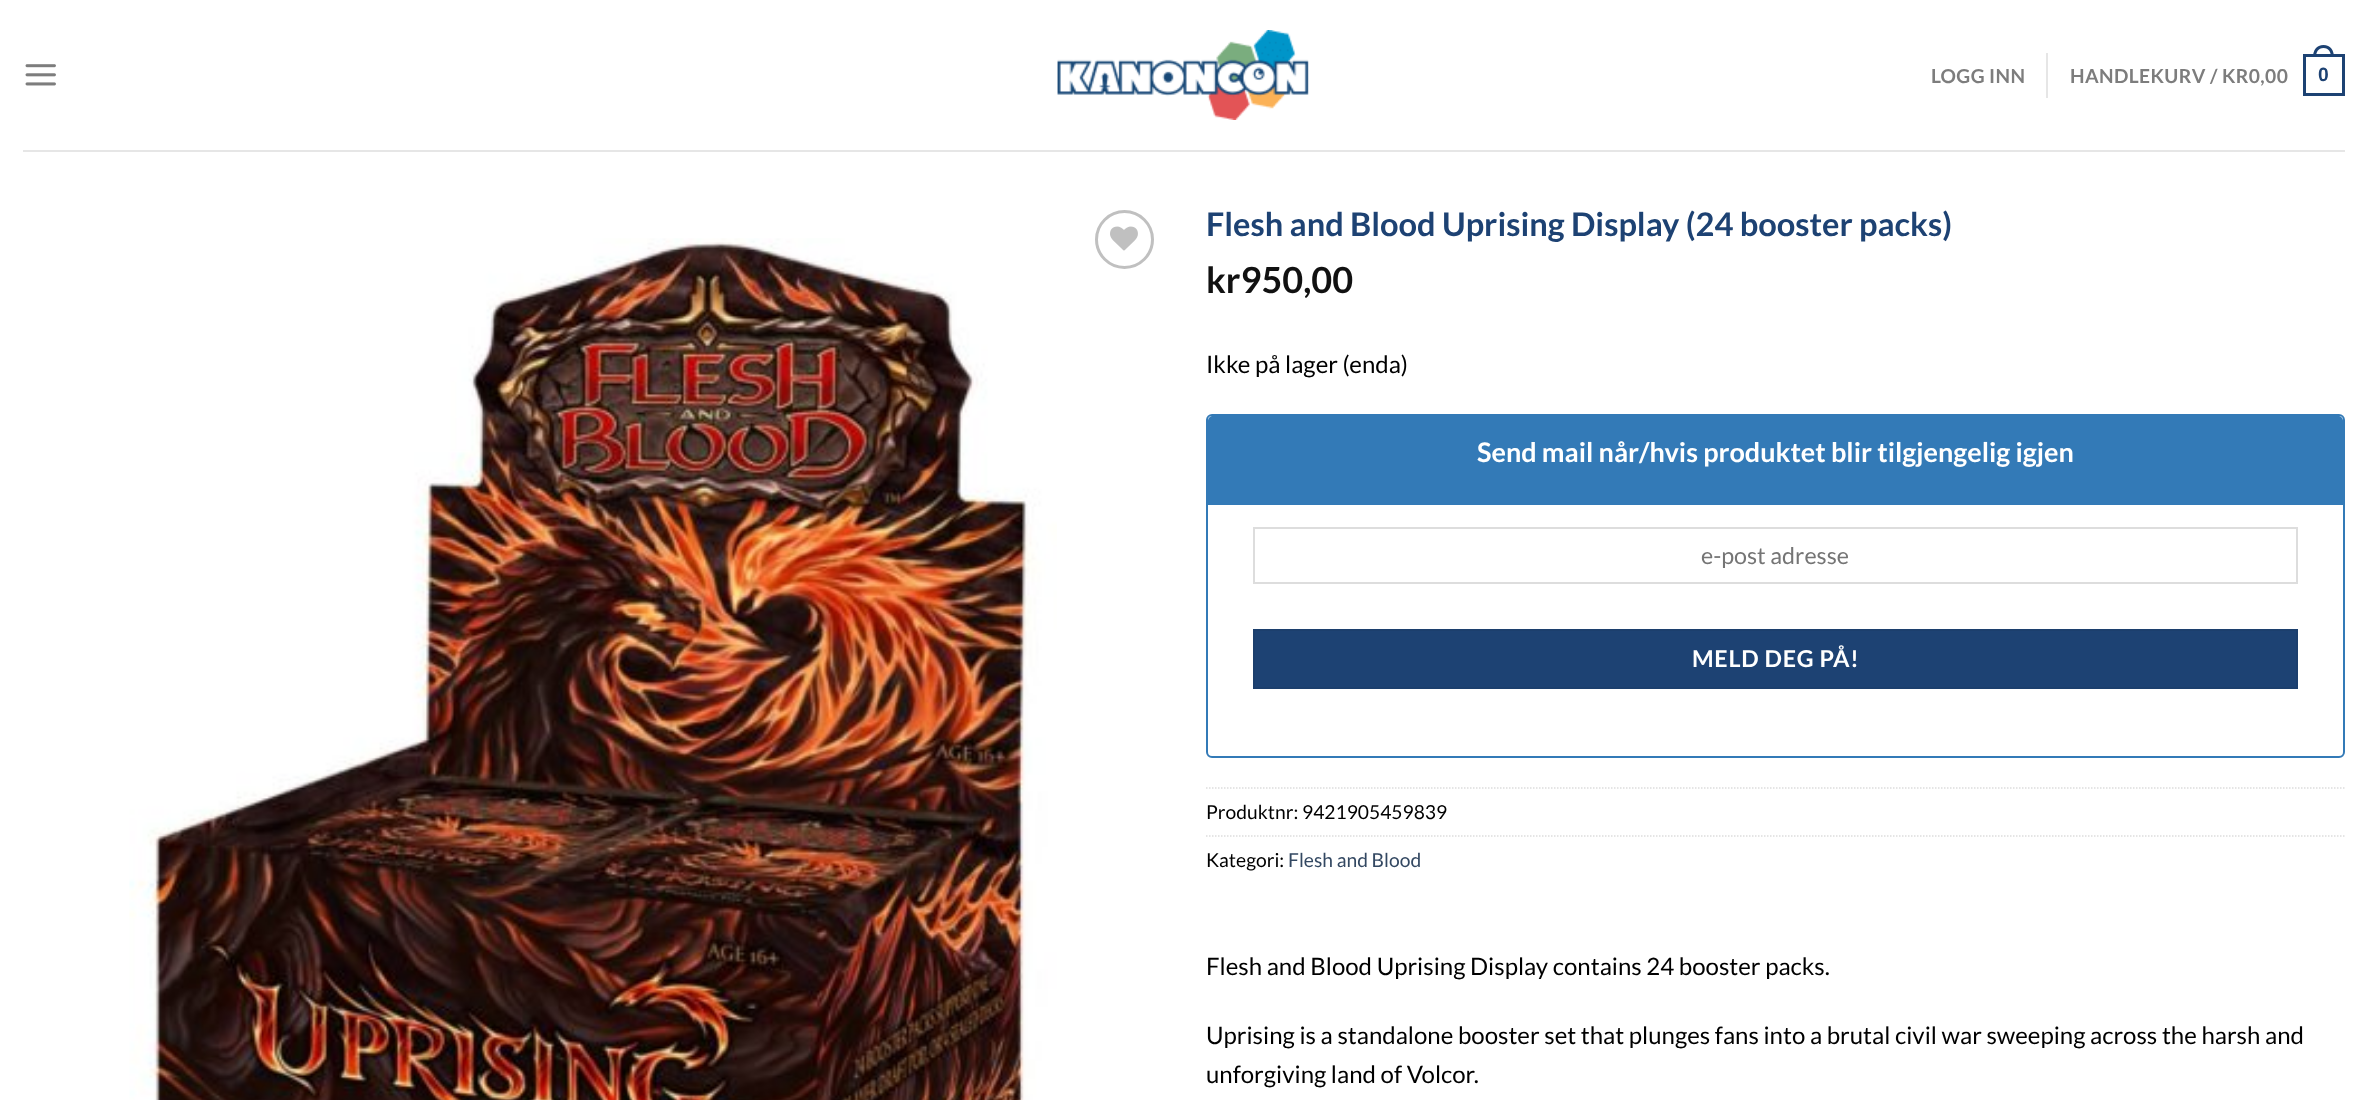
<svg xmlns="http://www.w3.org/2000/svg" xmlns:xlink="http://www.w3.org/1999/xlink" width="2367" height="1100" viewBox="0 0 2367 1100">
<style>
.cls-1{font:bold 19.25px Lato;letter-spacing:0.4px;fill:#7d7d7d}
.cls-2{font:bold 19.25px Liberation Sans;letter-spacing:0.4px;fill:#1d4273}
.cls-3{font:bold 32.6px Lato;fill:#1d4273}
.cls-4{font:bold 36px Lato;fill:#111111}
.cls-5{font:24px Lato;fill:#000000}
.cls-6{font:bold 27px Lato;fill:#ffffff}
.cls-7{font:23.25px Lato;fill:#757575}
.cls-8{font:bold 23.25px Lato;letter-spacing:0.75px;fill:#ffffff}
.cls-9{font:19.25px Lato;fill:#000000}
.cls-10{font:19.25px Lato;fill:#334862}
</style>
<rect width="100%" height="100%" fill="#ffffff"/>
<image xlink:href="image0.png" x="25" y="64" width="31" height="22"/>
<image xlink:href="image1.png" x="1057" y="30" width="252" height="90"/>
<rect fill="#e6e6e6" x="2046" y="53" width="2" height="45"/>
<rect fill="none" stroke="#1d4273" stroke-width="3" x="2304.5" y="55.5" width="39" height="39"/>
<path fill="#1d4273" fill-rule="evenodd" d="M2323.5 45C2330.5 45 2334 50.5 2334 57H2313C2313 50.5 2316.5 45 2323.5 45ZM2323.5 48C2329 48 2331 52.5 2331 57H2316C2316 52.5 2318 48 2323.5 48Z"/>
<rect fill="#e6e6e6" x="23" y="150" width="2322" height="2"/>
<image xlink:href="image2.png" x="129" y="238" width="928" height="862"/>
<circle fill="none" stroke="#c0c0c0" stroke-width="3" cx="1124.5" cy="239.5" r="28"/>
<image xlink:href="image3.png" x="1110" y="226" width="28" height="25"/>
<rect fill="none" stroke="#337ab7" stroke-width="2" x="1207" y="415" width="1137" height="342" rx="5"/>
<path fill="#337ab7" d="M1213 416H2338C2341 416 2343 418 2343 421V504H1208V421C1208 418 1210 416 1213 416Z"/>
<rect fill="#337ab7" x="1208" y="504" width="1135" height="1"/>
<rect fill="none" stroke="#dddddd" stroke-width="2" x="1254" y="528" width="1043" height="55"/>
<rect fill="#1d4273" stroke="#1c3f6d" stroke-width="2" x="1254" y="630" width="1043" height="58"/>
<path fill="none" stroke="#dddddd" stroke-width="1.5" stroke-dasharray="1.5 1.5" d="M1206 788H2344.5"/>
<path fill="none" stroke="#dddddd" stroke-width="1.5" stroke-dasharray="1.5 1.5" d="M1206 836H2344.5"/>
<text class="cls-1" x="1931" y="83">LOGG INN</text>
<text class="cls-1" x="2070" y="83">HANDLEKURV / KR0,00</text>
<text class="cls-2" x="2318" y="81">0</text>
<text class="cls-3" x="1206" y="236">Flesh and Blood Uprising Display (24 booster packs)</text>
<text class="cls-4" x="1206" y="293">kr950,00</text>
<text class="cls-5" x="1206" y="373">Ikke på lager (enda)</text>
<text class="cls-6" x="1477" y="462">Send mail når/hvis produktet blir tilgjengelig igjen</text>
<text class="cls-7" x="1701" y="564">e-post adresse</text>
<text class="cls-8" x="1692" y="667">MELD DEG PÅ!</text>
<text class="cls-9" x="1206" y="819">Produktnr: 9421905459839</text>
<text class="cls-9" x="1206" y="867">Kategori:</text>
<text class="cls-10" x="1288" y="867">Flesh and Blood</text>
<text class="cls-5" x="1206" y="975">Flesh and Blood Uprising Display contains 24 booster packs.</text>
<text class="cls-5"><tspan x="1206" y="1044">Uprising is a standalone booster set that plunges fans into a brutal civil war sweeping across the harsh and</tspan><tspan x="1206" y="1083">unforgiving land of Volcor.</tspan></text>
</svg>
